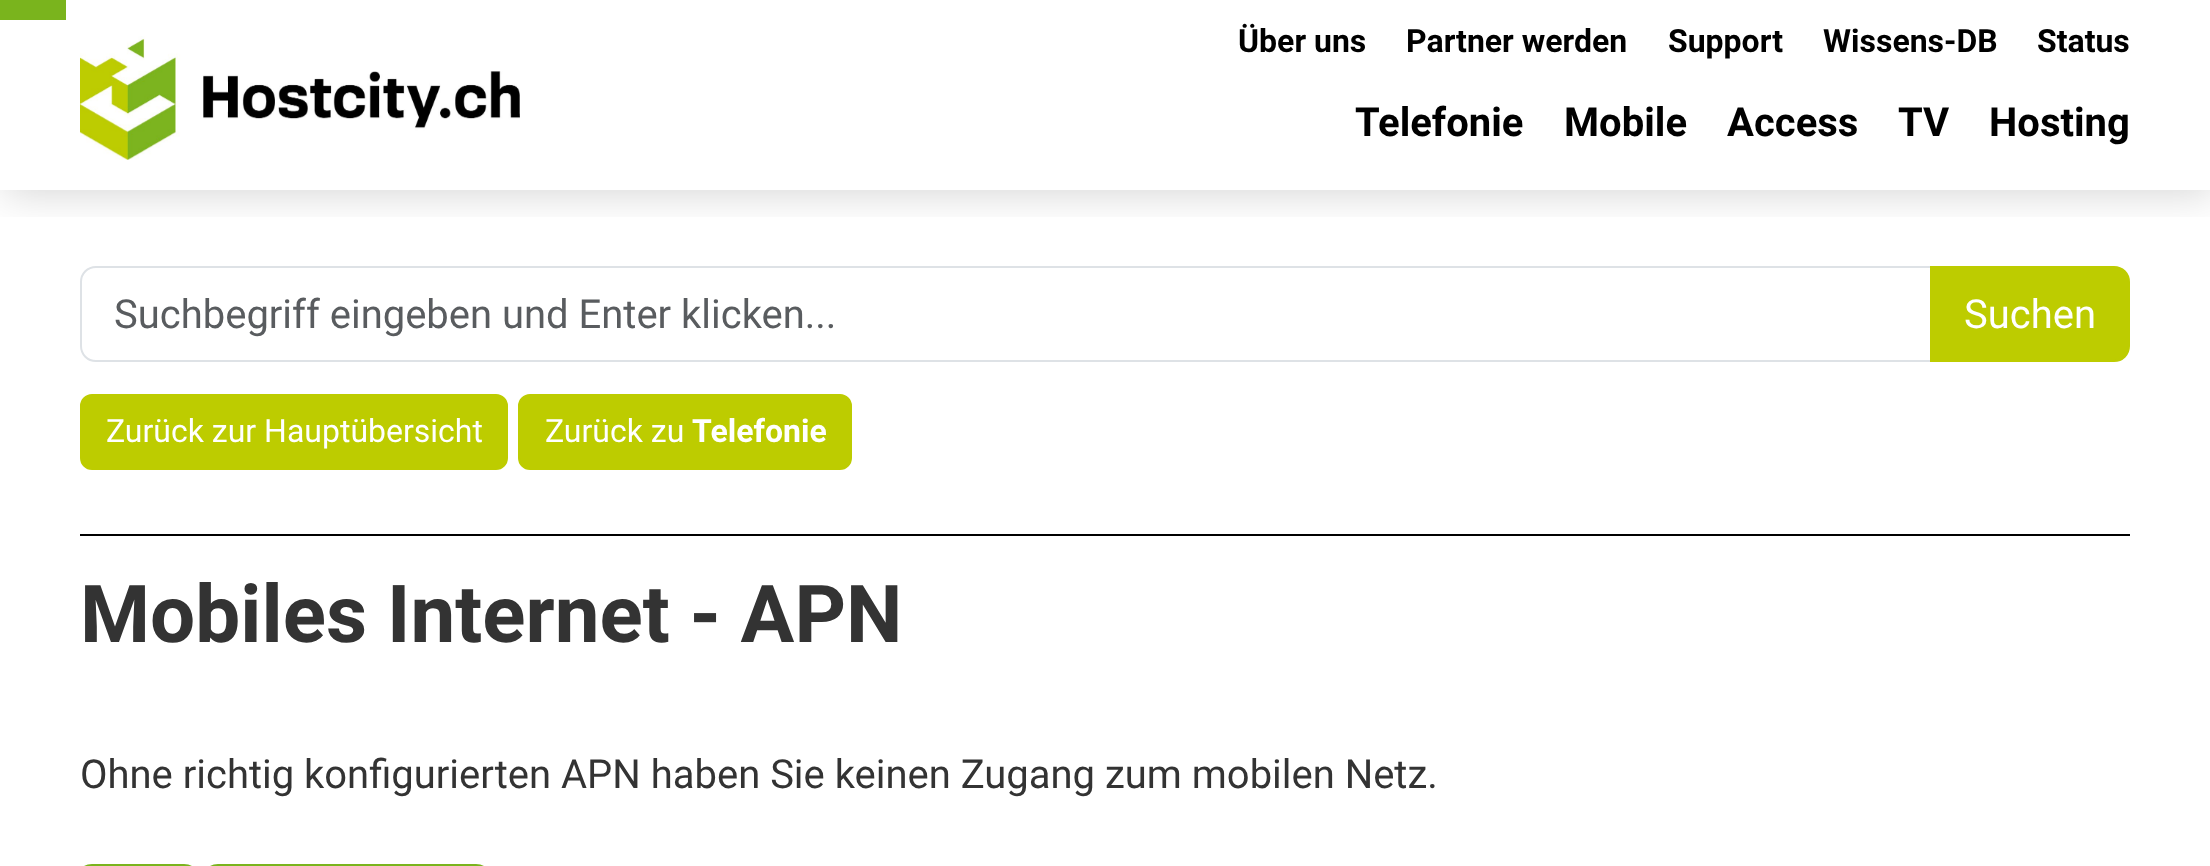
<svg xmlns="http://www.w3.org/2000/svg" xmlns:xlink="http://www.w3.org/1999/xlink" width="2210" height="866" viewBox="0 0 2210 866">
<style>
.cls-1{font:bold 32px Roboto;fill:#000000}
.cls-2{font:bold 40px Roboto;fill:#000000}
.cls-3{font:40px Roboto;fill:#595c5f}
.cls-4{font:40px Roboto;fill:#ffffff}
.cls-5{font:32px Roboto;fill:#ffffff}
.cls-6{font:bold 32px Roboto;fill:#ffffff}
.cls-7{font:bold 80px Roboto;fill:#333333}
.cls-8{font:40px Roboto;fill:#333333}
</style>
<defs>
<clipPath id="clip1"><rect x="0" y="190" width="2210" height="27"/></clipPath>
</defs>
<rect width="100%" height="100%" fill="#ffffff"/>
<g clip-path="url(#clip1)">
<rect fill="#000000" fill-opacity="0.16" filter="blur(20px)" x="4" y="4" width="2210" height="190"/>
</g>
<rect fill="#7ab41d" x="0" y="0" width="66" height="20"/>
<image xlink:href="image0.png" x="80" y="36" width="440" height="124"/>
<path fill="none" stroke="#dee2e6" stroke-width="2" d="M96 267H1931V361H96C87.5 361 81 354.5 81 346V282C81 273.5 87.5 267 96 267Z"/>
<path fill="#bdcc00" stroke="#bdcc00" stroke-width="2" d="M1931 267H2114C2122.5 267 2129 273.5 2129 282V346C2129 354.5 2122.5 361 2114 361H1931Z"/>
<rect fill="#bdcc00" stroke="#bdcc00" stroke-width="2" x="81" y="395" width="426" height="74" rx="11"/>
<rect fill="#bdcc00" stroke="#bdcc00" stroke-width="2" x="519" y="395" width="332" height="74" rx="11"/>
<rect fill="#000000" x="80" y="534" width="2050" height="2"/>
<rect fill="none" stroke="#7ab41d" stroke-width="2" x="81" y="865" width="114" height="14" rx="11"/>
<rect fill="none" stroke="#7ab41d" stroke-width="2" x="207" y="865" width="280" height="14" rx="11"/>
<text class="cls-1" x="1238" y="52">Über uns</text>
<text class="cls-1" x="1406" y="52">Partner werden</text>
<text class="cls-1" x="1668" y="52">Support</text>
<text class="cls-1" x="1823" y="52">Wissens-DB</text>
<text class="cls-1" x="2037" y="52">Status</text>
<text class="cls-2" x="1355" y="136">Telefonie</text>
<text class="cls-2" x="1564" y="136">Mobile</text>
<text class="cls-2" x="1727" y="136">Access</text>
<text class="cls-2" x="1898" y="136">TV</text>
<text class="cls-2" x="1989" y="136">Hosting</text>
<text class="cls-3" x="114" y="328">Suchbegriff eingeben und Enter klicken...</text>
<text class="cls-4" x="1964" y="328">Suchen</text>
<text class="cls-5" x="106" y="442">Zurück zur Hauptübersicht</text>
<text class="cls-5" x="545" y="442">Zurück zu</text>
<text class="cls-6" x="692" y="442">Telefonie</text>
<text class="cls-7" x="80" y="642">Mobiles Internet - APN</text>
<text class="cls-8" x="80" y="788">Ohne richtig konfigurierten APN haben Sie keinen Zugang zum mobilen Netz.</text>
</svg>
